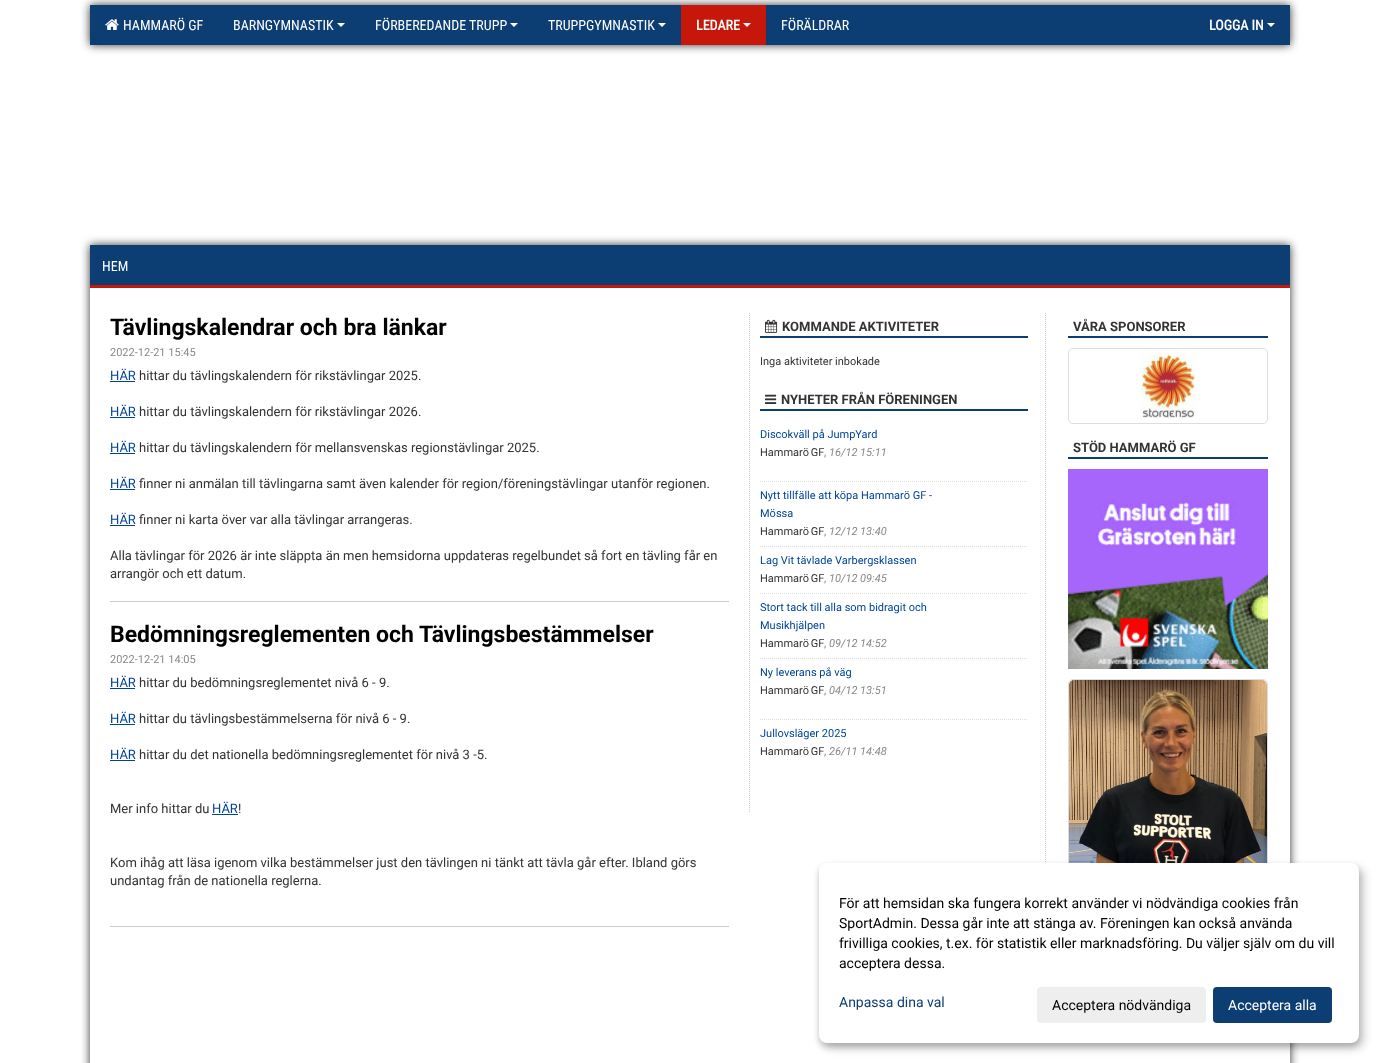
<svg xmlns="http://www.w3.org/2000/svg" xmlns:xlink="http://www.w3.org/1999/xlink" width="1379" height="1063" viewBox="0 0 1379 1063">
<style>
.cls-1{font:14px Roboto Condensed;fill:#ffffff}
.cls-2{font:bold 14px Roboto Condensed;fill:#ffffff}
.cls-3{font:bold 23px Roboto;fill:#000000}
.cls-4{font:11px Roboto;fill:#888888}
.cls-5{font:13px Roboto;fill:#004499}
.cls-6{font:13px Roboto;fill:#333333}
.cls-7{font:bold 13px Roboto;fill:#333333}
.cls-8{font:11px Roboto;fill:#333333}
.cls-9{font:11px Roboto;fill:#004499}
.cls-10{font:italic 11px Roboto;fill:#888888}
.cls-11{font:14px Roboto;fill:#000000}
.cls-12{font:14px Roboto;fill:#0c3e73}
.cls-13{font:14px Roboto;fill:#ffffff}
</style>
<defs>
<clipPath id="clip1"><path d="M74 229H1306V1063H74ZM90 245H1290V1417H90Z" clip-rule="evenodd"/></clipPath>
</defs>
<rect width="100%" height="100%" fill="#ffffff"/>
<rect fill="#333333" filter="blur(5px)" x="90" y="5" width="1200" height="40"/>
<rect fill="#0c3e73" x="90" y="5" width="1200" height="40"/>
<image xlink:href="image0.png" x="105" y="19" width="14" height="11"/>
<path fill="#ffffff" d="M337 23H345L341 27Z"/>
<path fill="#ffffff" d="M510 23H518L514 27Z"/>
<path fill="#ffffff" d="M658 23H666L662 27Z"/>
<rect fill="#c7170a" x="681" y="5" width="85" height="40"/>
<path fill="#ffffff" d="M743 23H751L747 27Z"/>
<path fill="#ffffff" d="M1267 23H1275L1271 27Z"/>
<g clip-path="url(#clip1)">
<rect fill="#333333" filter="blur(5px)" x="90" y="245" width="1200" height="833"/>
</g>
<rect fill="#0c3e73" x="90" y="245" width="1200" height="40"/>
<rect fill="#c7170a" x="90" y="285" width="1200" height="3"/>
<rect fill="#004499" x="110" y="381" width="25" height="1"/>
<rect fill="#004499" x="110" y="417" width="25" height="1"/>
<rect fill="#004499" x="110" y="453" width="25" height="1"/>
<rect fill="#004499" x="110" y="489" width="25" height="1"/>
<rect fill="#004499" x="110" y="525" width="25" height="1"/>
<rect fill="#cccccc" x="110" y="601" width="619" height="1"/>
<rect fill="#004499" x="110" y="688" width="25" height="1"/>
<rect fill="#004499" x="110" y="724" width="25" height="1"/>
<rect fill="#004499" x="110" y="760" width="25" height="1"/>
<rect fill="#004499" x="212" y="814" width="26" height="1"/>
<rect fill="#cccccc" x="110" y="926" width="619" height="1"/>
<path fill="none" stroke="#cccccc" stroke-dasharray="1 1" d="M749.5 313V813"/>
<rect fill="#0c3e73" x="760" y="336" width="268" height="2"/>
<image xlink:href="image1.png" x="765" y="319" width="13" height="14"/>
<rect fill="#0c3e73" x="760" y="409" width="268" height="2"/>
<image xlink:href="image2.png" x="765" y="394" width="12" height="10"/>
<path fill="none" stroke="#dddddd" stroke-dasharray="1 1" d="M760 481.5H1028"/>
<path fill="none" stroke="#dddddd" stroke-dasharray="1 1" d="M760 546.5H1028"/>
<path fill="none" stroke="#dddddd" stroke-dasharray="1 1" d="M760 593.5H1028"/>
<path fill="none" stroke="#dddddd" stroke-dasharray="1 1" d="M760 658.5H1028"/>
<path fill="none" stroke="#dddddd" stroke-dasharray="1 1" d="M760 719.5H1028"/>
<path fill="none" stroke="#cccccc" stroke-dasharray="1 1" d="M1045.5 313V1036"/>
<rect fill="#0c3e73" x="1068" y="336" width="200" height="2"/>
<rect fill="none" stroke="#dddddd" x="1068.5" y="348.5" width="199" height="75" rx="4.5"/>
<image xlink:href="image3.png" x="1140" y="349" width="56" height="69"/>
<rect fill="#0c3e73" x="1068" y="457" width="200" height="2"/>
<image xlink:href="image4.png" x="1068" y="469" width="200" height="200"/>
<rect fill="none" stroke="#dddddd" x="1068.5" y="679.5" width="199" height="336" rx="4.5"/>
<image xlink:href="image5.png" x="1069" y="680" width="198" height="183"/>
<rect fill="#000000" fill-opacity="0.19" filter="blur(5px)" x="824" y="868" width="540" height="180" rx="8"/>
<rect fill="#000000" fill-opacity="0.2" filter="blur(3px)" x="819" y="867" width="540" height="180" rx="8"/>
<rect fill="#ffffff" x="819" y="863" width="540" height="180" rx="8"/>
<rect fill="#eeeeee" x="1037" y="987" width="169" height="36" rx="4"/>
<rect fill="#0c3e73" x="1213" y="987" width="119" height="36" rx="4"/>
<text class="cls-1" x="123" y="30">HAMMARÖ GF</text>
<text class="cls-1" x="233" y="30">BARNGYMNASTIK</text>
<text class="cls-1" x="375" y="30">FÖRBEREDANDE TRUPP</text>
<text class="cls-1" x="548" y="30">TRUPPGYMNASTIK</text>
<text class="cls-2" x="696" y="30">LEDARE</text>
<text class="cls-1" x="781" y="30">FÖRÄLDRAR</text>
<text class="cls-2" x="1209" y="30">LOGGA IN</text>
<text class="cls-1" x="102" y="271">HEM</text>
<text class="cls-3" x="110" y="335">Tävlingskalendrar och bra länkar</text>
<text class="cls-4" x="110" y="356">2022-12-21 15:45</text>
<text class="cls-5" x="110" y="380">HÄR</text>
<text class="cls-6" x="139" y="380">hittar du tävlingskalendern för rikstävlingar 2025.</text>
<text class="cls-5" x="110" y="416">HÄR</text>
<text class="cls-6" x="139" y="416">hittar du tävlingskalendern för rikstävlingar 2026.</text>
<text class="cls-5" x="110" y="452">HÄR</text>
<text class="cls-6" x="139" y="452">hittar du tävlingskalendern för mellansvenskas regionstävlingar 2025.</text>
<text class="cls-5" x="110" y="488">HÄR</text>
<text class="cls-6" x="139" y="488">finner ni anmälan till tävlingarna samt även kalender för region/föreningstävlingar utanför regionen.</text>
<text class="cls-5" x="110" y="524">HÄR</text>
<text class="cls-6" x="139" y="524">finner ni karta över var alla tävlingar arrangeras.</text>
<text class="cls-6"><tspan x="110" y="560">Alla tävlingar för 2026 är inte släppta än men hemsidorna uppdateras regelbundet så fort en tävling får en</tspan><tspan x="110" y="578">arrangör och ett datum.</tspan></text>
<text class="cls-3" x="110" y="642">Bedömningsreglementen och Tävlingsbestämmelser</text>
<text class="cls-4" x="110" y="663">2022-12-21 14:05</text>
<text class="cls-5" x="110" y="687">HÄR</text>
<text class="cls-6" x="139" y="687">hittar du bedömningsreglementet nivå 6 - 9.</text>
<text class="cls-5" x="110" y="723">HÄR</text>
<text class="cls-6" x="139" y="723">hittar du tävlingsbestämmelserna för nivå 6 - 9.</text>
<text class="cls-5" x="110" y="759">HÄR</text>
<text class="cls-6" x="139" y="759">hittar du det nationella bedömningsreglementet för nivå 3 -5.</text>
<text class="cls-6" x="110" y="813">Mer info hittar du</text>
<text class="cls-5" x="212" y="813">HÄR</text>
<text class="cls-6" x="238" y="813">!</text>
<text class="cls-6"><tspan x="110" y="867">Kom ihåg att läsa igenom vilka bestämmelser just den tävlingen ni tänkt att tävla går efter. Ibland görs</tspan><tspan x="110" y="885">undantag från de nationella reglerna.</tspan></text>
<text class="cls-7" x="782" y="331">KOMMANDE AKTIVITETER</text>
<text class="cls-8" x="760" y="365">Inga aktiviteter inbokade</text>
<text class="cls-7" x="781" y="404">NYHETER FRÅN FÖRENINGEN</text>
<text class="cls-9" x="760" y="438">Discokväll på JumpYard</text>
<text class="cls-8" x="760" y="456" word-spacing="-1">Hammarö GF</text>
<text class="cls-10" x="829" y="456">16/12 15:11</text>
<text class="cls-4" x="824" y="456">,</text>
<text class="cls-9"><tspan x="760" y="499">Nytt tillfälle att köpa Hammarö GF -</tspan><tspan x="760" y="517">Mössa</tspan></text>
<text class="cls-8" x="760" y="535" word-spacing="-1">Hammarö GF</text>
<text class="cls-10" x="829" y="535">12/12 13:40</text>
<text class="cls-4" x="824" y="535">,</text>
<text class="cls-9" x="760" y="564">Lag Vit tävlade Varbergsklassen</text>
<text class="cls-8" x="760" y="582" word-spacing="-1">Hammarö GF</text>
<text class="cls-10" x="829" y="582">10/12 09:45</text>
<text class="cls-4" x="824" y="582">,</text>
<text class="cls-9"><tspan x="760" y="611">Stort tack till alla som bidragit och</tspan><tspan x="760" y="629">Musikhjälpen</tspan></text>
<text class="cls-8" x="760" y="647" word-spacing="-1">Hammarö GF</text>
<text class="cls-10" x="829" y="647">09/12 14:52</text>
<text class="cls-4" x="824" y="647">,</text>
<text class="cls-9" x="760" y="676">Ny leverans på väg</text>
<text class="cls-8" x="760" y="694" word-spacing="-1">Hammarö GF</text>
<text class="cls-10" x="829" y="694">04/12 13:51</text>
<text class="cls-4" x="824" y="694">,</text>
<text class="cls-9" x="760" y="737">Jullovsläger 2025</text>
<text class="cls-8" x="760" y="755" word-spacing="-1">Hammarö GF</text>
<text class="cls-10" x="829" y="755">26/11 14:48</text>
<text class="cls-4" x="824" y="755">,</text>
<text class="cls-7" x="1073" y="331">VÅRA SPONSORER</text>
<text class="cls-7" x="1073" y="452">STÖD HAMMARÖ GF</text>
<text class="cls-11"><tspan x="839" y="908">För att hemsidan ska fungera korrekt använder vi nödvändiga cookies från</tspan><tspan x="839" y="928">SportAdmin. Dessa går inte att stänga av. Föreningen kan också använda</tspan><tspan x="839" y="948">frivilliga cookies, t.ex. för statistik eller marknadsföring. Du väljer själv om du vill</tspan><tspan x="839" y="968">acceptera dessa.</tspan></text>
<text class="cls-12" x="839" y="1007">Anpassa dina val</text>
<text class="cls-11" x="1052" y="1010">Acceptera nödvändiga</text>
<text class="cls-13" x="1228" y="1010">Acceptera alla</text>
</svg>
